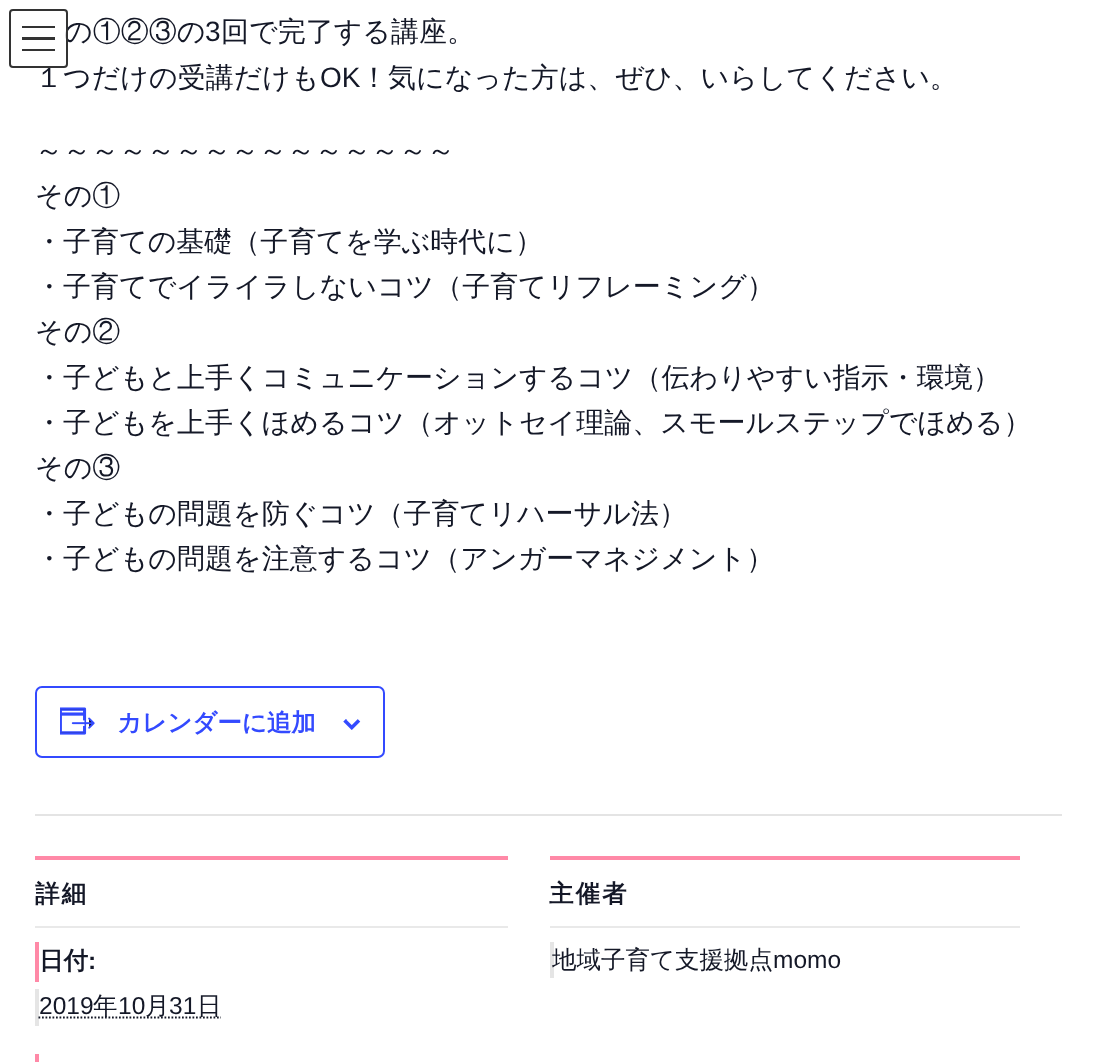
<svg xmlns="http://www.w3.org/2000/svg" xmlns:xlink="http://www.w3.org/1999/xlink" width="1097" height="1062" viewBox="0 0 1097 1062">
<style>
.cls-1{font:500 28px WenQuanYi Zen Hei;fill:#141827}
.cls-2{font:28px Liberation Sans;fill:#141827}
.cls-3{font:bold 24.5px WenQuanYi Zen Hei;fill:#334aff}
.cls-4{font:bold 24.5px WenQuanYi Zen Hei;letter-spacing:2px;fill:#141827}
.cls-5{font:bold 24.5px WenQuanYi Zen Hei;fill:#141827}
.cls-6{font:bold 24.5px Liberation Sans;fill:#141827}
.cls-7{font:24.5px Liberation Sans;fill:#141827}
.cls-8{font:500 24.5px WenQuanYi Zen Hei;fill:#141827}
</style>
<rect width="100%" height="100%" fill="#ffffff"/>
<rect fill="none" stroke="#334aff" stroke-width="2" x="36" y="687" width="348" height="70" rx="6"/>
<image xlink:href="image0.png" x="60" y="707" width="35" height="28"/>
<image xlink:href="image1.png" x="343" y="719" width="18" height="11"/>
<rect fill="#e4e4e4" x="35" y="814" width="1027" height="2"/>
<rect fill="#ff89a7" x="35" y="856" width="473" height="4"/>
<rect fill="#e9e9e9" x="35" y="926" width="473" height="2"/>
<rect fill="#ff89a7" x="35" y="942" width="4" height="40"/>
<rect fill="#e5e5e5" x="35" y="989" width="4" height="37"/>
<path fill="none" stroke="#141827" stroke-width="1.8" stroke-dasharray="1.75 1.75" d="M38.5 1017.5H221"/>
<rect fill="#ff89a7" x="35" y="1054" width="4" height="8"/>
<rect fill="#ff89a7" x="550" y="856" width="470" height="4"/>
<rect fill="#e9e9e9" x="550" y="926" width="470" height="2"/>
<rect fill="#e5e5e5" x="550" y="942" width="4" height="36"/>
<text class="cls-1" x="64" y="41">の①②③の</text>
<text class="cls-2" x="205" y="41">3</text>
<text class="cls-1" x="221" y="41">回で完了する講座。</text>
<text class="cls-1" x="35" y="87">１つだけの受講だけも</text>
<rect fill="#ffffff" fill-opacity="0.8" x="9" y="9" width="59" height="59" rx="4"/>
<rect fill="#333333" x="22" y="49" width="33" height="2"/>
<rect fill="#000000" fill-opacity="0.8" x="22" y="37" width="33" height="3"/>
<rect fill="#000000" fill-opacity="0.8" x="22" y="26" width="33" height="2"/>
<rect fill="none" stroke="#333333" stroke-width="2" x="10" y="10" width="57" height="57" rx="3"/>
<text class="cls-2" x="320" y="87">OK</text>
<text class="cls-1" x="360" y="87">！気になった方は、ぜひ、いらしてください。</text>
<text class="cls-1"><tspan x="35" y="160">～～～～～～～～～～～～～～～</tspan><tspan x="35" y="205">その①</tspan><tspan x="35" y="251">・子育ての基礎（子育てを学ぶ時代に）</tspan><tspan x="35" y="296">・子育てでイライラしないコツ（子育てリフレーミング）</tspan><tspan x="35" y="341">その②</tspan><tspan x="35" y="387">・子どもと上手くコミュニケーションするコツ（伝わりやすい指示・環境）</tspan><tspan x="35" y="432">・子どもを上手くほめるコツ（オットセイ理論、スモールステップでほめる）</tspan><tspan x="35" y="477">その③</tspan><tspan x="35" y="523">・子どもの問題を防ぐコツ（子育てリハーサル法）</tspan><tspan x="35" y="568">・子どもの問題を注意するコツ（アンガーマネジメント）</tspan></text>
<text class="cls-3" x="117" y="731">カレンダーに追加</text>
<text class="cls-4" x="35" y="902">詳細</text>
<text class="cls-5" x="39" y="969">日付</text>
<text class="cls-6" x="88" y="969">:</text>
<text class="cls-7" x="39" y="1014">2019</text>
<text class="cls-8" x="93" y="1014">年</text>
<text class="cls-7" x="118" y="1014">10</text>
<text class="cls-8" x="145" y="1014">月</text>
<text class="cls-7" x="169" y="1014">31</text>
<text class="cls-8" x="197" y="1014">日</text>
<text class="cls-4" x="549" y="902">主催者</text>
<text class="cls-8" x="552" y="968">地域子育て支援拠点</text>
<text class="cls-7" x="773" y="968">momo</text>
</svg>
